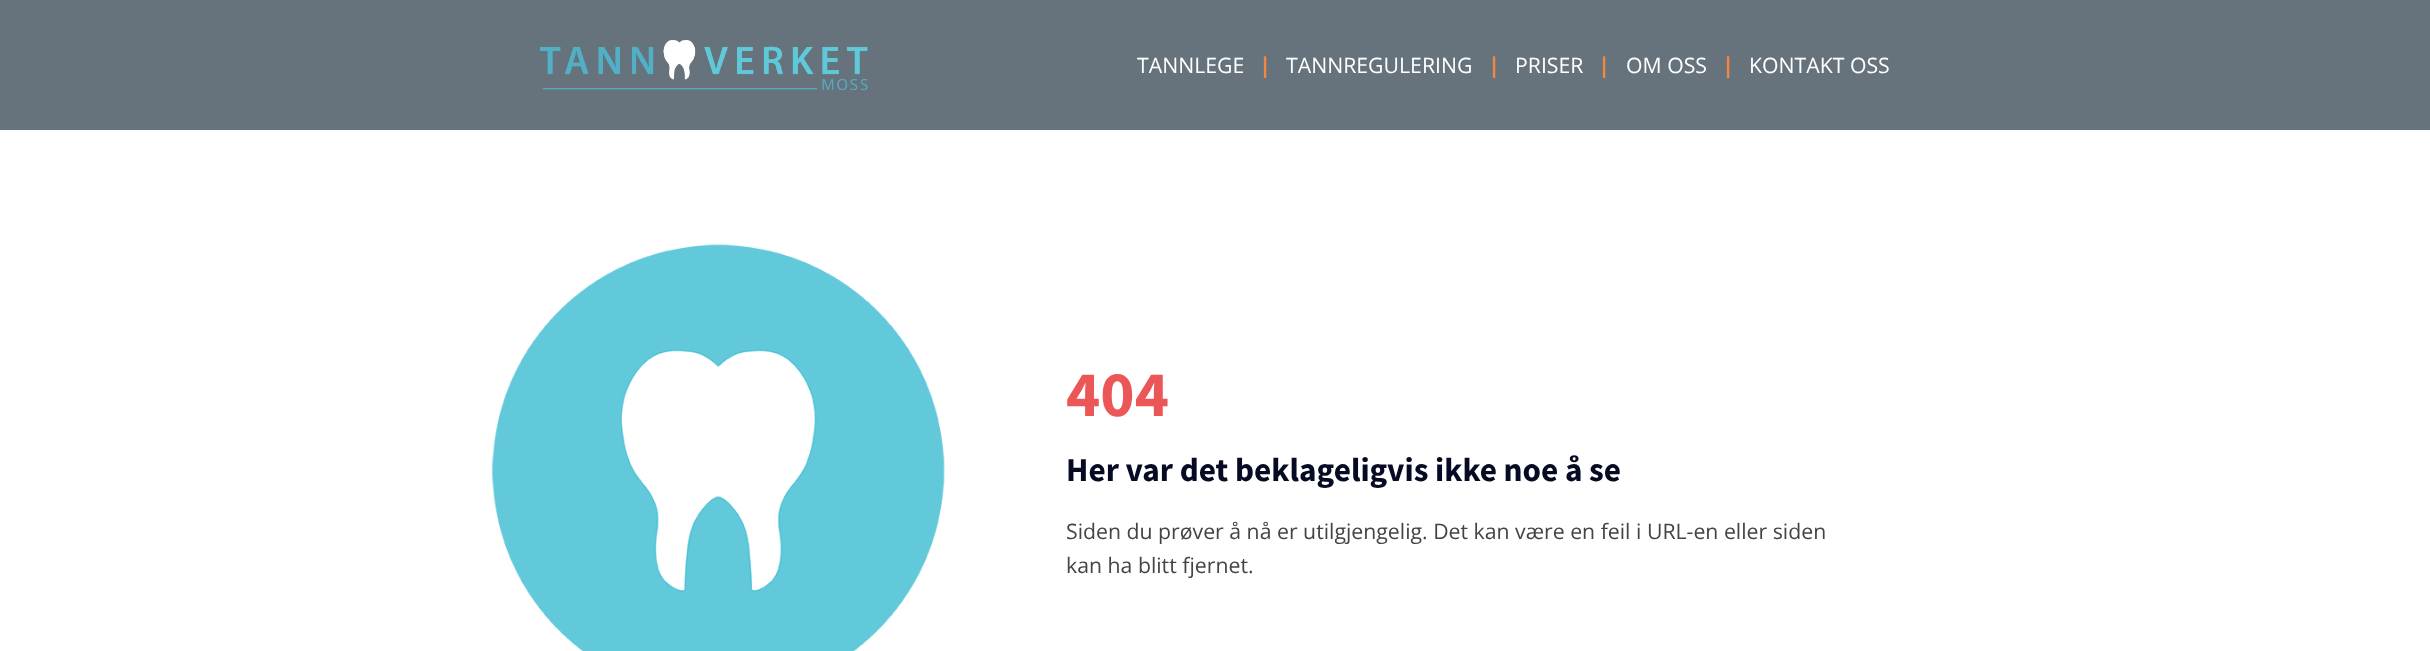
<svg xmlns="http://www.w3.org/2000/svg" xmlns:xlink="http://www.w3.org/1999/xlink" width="2430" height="651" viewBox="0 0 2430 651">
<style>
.cls-1{font:21.25px Open Sans;fill:#ffffff}
.cls-2{font:bold 22px Open Sans;fill:#f6863e}
.cls-3{font:bold 65px Source Sans Pro;fill:#eb5757}
.cls-4{font:bold 33.25px Source Sans Pro;fill:#060b23}
.cls-5{font:21.25px Open Sans;fill:#444444}
</style>
<rect width="100%" height="100%" fill="#ffffff"/>
<rect fill="#66737c" x="0" y="0" width="2430" height="130"/>
<image xlink:href="image0.png" x="540" y="40" width="328" height="50"/>
<image xlink:href="image1.png" x="491" y="244" width="454" height="407"/>
<text class="cls-1" x="1137" y="73">TANNLEGE</text>
<text class="cls-2" x="1259" y="73">|</text>
<text class="cls-1" x="1286" y="73">TANNREGULERING</text>
<text class="cls-2" x="1488" y="73">|</text>
<text class="cls-1" x="1515" y="73">PRISER</text>
<text class="cls-2" x="1598" y="73">|</text>
<text class="cls-1" x="1626" y="73">OM OSS</text>
<text class="cls-2" x="1722" y="73">|</text>
<text class="cls-1" x="1749" y="73">KONTAKT OSS</text>
<text class="cls-3" x="1066" y="416">404</text>
<text class="cls-4" x="1066" y="481">Her var det beklageligvis ikke noe å se</text>
<text class="cls-5"><tspan x="1066" y="539">Siden du prøver å nå er utilgjengelig. Det kan være en feil i URL-en eller siden</tspan><tspan x="1066" y="573">kan ha blitt fjernet.</tspan></text>
</svg>
